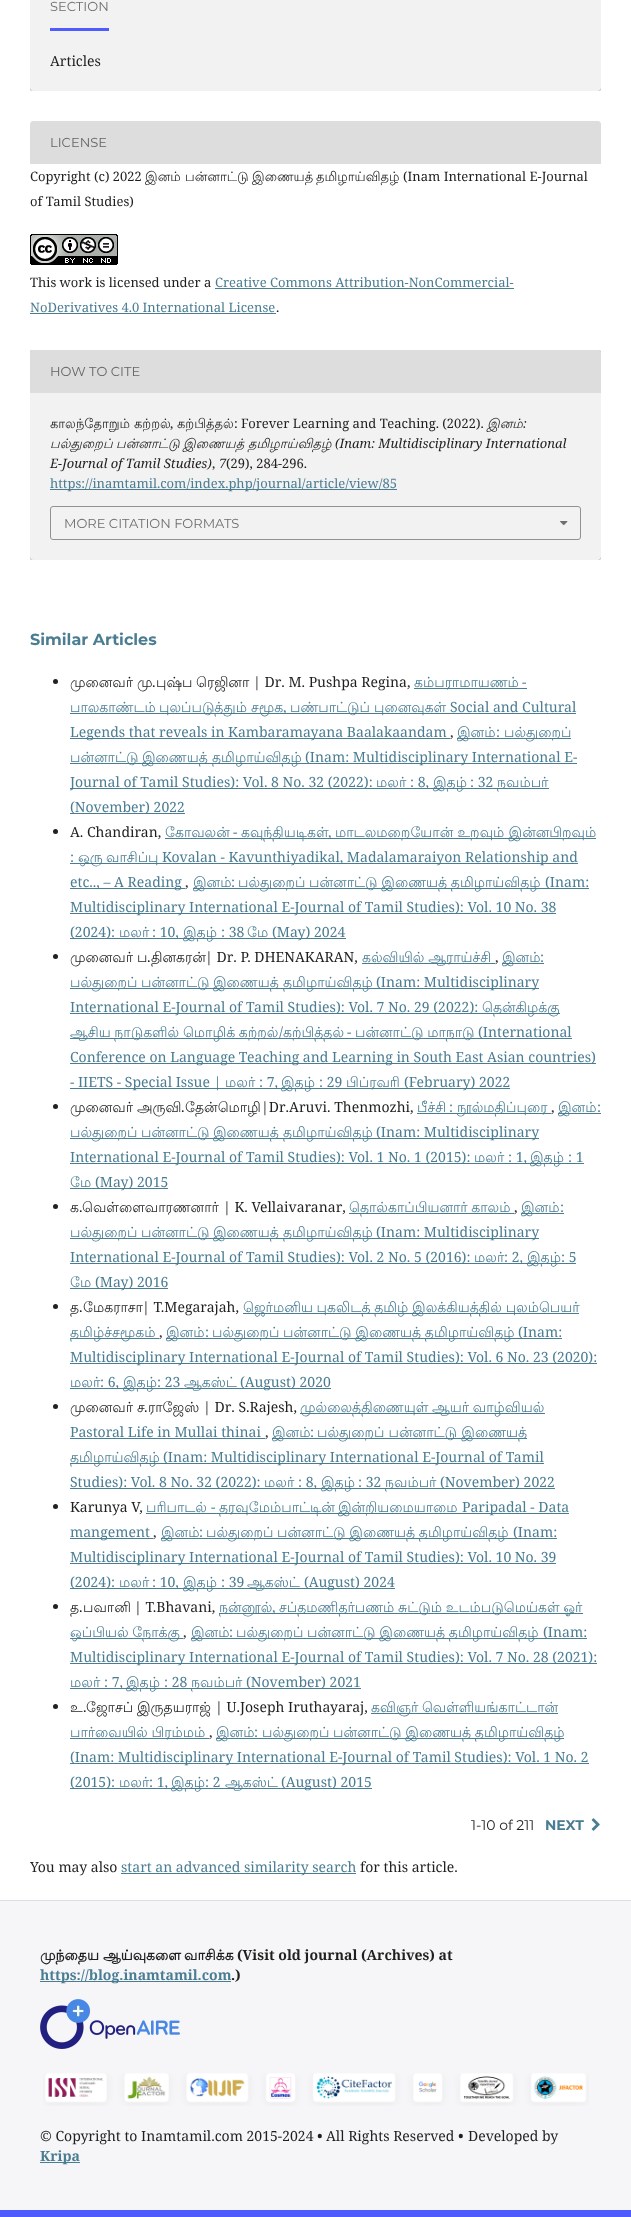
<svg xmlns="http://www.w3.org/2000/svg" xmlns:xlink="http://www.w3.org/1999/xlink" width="631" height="2217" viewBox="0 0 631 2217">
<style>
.cls-1{font:13px Montserrat;fill:#6f6f6f}
.cls-2{font:14px Noto Serif;fill:#1f1f1f}
.cls-3{font:13px Montserrat;fill:#666666}
.cls-4{font:13px Noto Serif;fill:#1f1f1f}
.cls-5{font:13px Lohit Tamil;fill:#1f1f1f}
.cls-6{font:13px Noto Serif;fill:#4b7d92}
.cls-7{font:italic 13px Lohit Tamil;fill:#1f1f1f}
.cls-8{font:italic 13px Noto Serif;fill:#1f1f1f}
.cls-9{font:bold 16px Montserrat;fill:#4b7d92}
.cls-10{font:14px Lohit Tamil;fill:#1f1f1f}
.cls-11{font:14px Lohit Tamil;fill:#4b7d92}
.cls-12{font:14px Noto Serif;fill:#4b7d92}
.cls-13{font:14px Montserrat;fill:#1f1f1f}
.cls-14{font:bold 14px Montserrat;fill:#4b7d92}
.cls-15{font:bold 14px Lohit Tamil;fill:#1f1f1f}
.cls-16{font:bold 14px Noto Serif;fill:#1f1f1f}
.cls-17{font:bold 14px Noto Serif;fill:#4b7d92}
</style>
<defs>
<clipPath id="clip1"><path d="M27 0H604V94H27ZM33-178H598C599.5-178 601-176.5 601-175V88C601 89.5 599.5 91 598 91H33C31.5 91 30 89.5 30 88V-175C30-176.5 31.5-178 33-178Z" clip-rule="evenodd"/></clipPath>
<clipPath id="clip2"><path d="M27 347H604V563H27ZM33 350H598C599.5 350 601 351.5 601 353V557C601 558.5 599.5 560 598 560H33C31.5 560 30 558.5 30 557V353C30 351.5 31.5 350 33 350Z" clip-rule="evenodd"/></clipPath>
</defs>
<rect width="100%" height="100%" fill="#ffffff"/>
<g clip-path="url(#clip1)">
<rect fill="#000000" fill-opacity="0.4" filter="blur(0.5px)" x="30" y="-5" width="571" height="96" rx="3"/>
</g>
<rect fill="#000000" fill-opacity="0.05" x="30" y="0" width="571" height="91"/>
<rect fill="#4e5cfe" x="50" y="28" width="59" height="3"/>
<path fill="#dddddd" d="M33 121H598C599.5 121 601 122.5 601 124V164H30V124C30 122.5 31.5 121 33 121Z"/>
<image xlink:href="image0.png" x="30" y="234" width="88" height="31"/>
<rect fill="#4b7d92" x="215" y="288" width="299" height="1"/>
<rect fill="#4b7d92" x="30" y="313" width="246" height="1"/>
<g clip-path="url(#clip2)">
<rect fill="#000000" fill-opacity="0.4" filter="blur(0.5px)" x="30" y="350" width="571" height="210" rx="3"/>
</g>
<rect fill="#000000" fill-opacity="0.05" x="30" y="350" width="571" height="210"/>
<path fill="#dddddd" d="M33 350H598C599.5 350 601 351.5 601 353V393H30V353C30 351.5 31.5 350 33 350Z"/>
<rect fill="#4b7d92" x="50" y="489" width="347" height="1"/>
<rect fill="none" stroke="#919191" x="50.5" y="506.5" width="530" height="33" rx="2.5"/>
<image xlink:href="image1.png" x="560" y="521" width="8" height="5"/>
<circle fill="#212121" cx="55.5" cy="681.5" r="2.5"/>
<rect fill="#4b7d92" x="414" y="688" width="113" height="1"/>
<rect fill="#4b7d92" x="70" y="713" width="506" height="1"/>
<rect fill="#4b7d92" x="70" y="738" width="380" height="1"/>
<rect fill="#4b7d92" x="457" y="738" width="114" height="1"/>
<rect fill="#4b7d92" x="70" y="763" width="507" height="1"/>
<rect fill="#4b7d92" x="70" y="788" width="479" height="1"/>
<rect fill="#4b7d92" x="70" y="813" width="115" height="1"/>
<circle fill="#212121" cx="55.5" cy="831.5" r="2.5"/>
<rect fill="#4b7d92" x="165" y="838" width="431" height="1"/>
<rect fill="#4b7d92" x="70" y="863" width="508" height="1"/>
<rect fill="#4b7d92" x="70" y="888" width="115" height="1"/>
<rect fill="#4b7d92" x="193" y="888" width="396" height="1"/>
<rect fill="#4b7d92" x="70" y="913" width="486" height="1"/>
<rect fill="#4b7d92" x="70" y="938" width="276" height="1"/>
<circle fill="#212121" cx="55.5" cy="956.5" r="2.5"/>
<rect fill="#4b7d92" x="362" y="963" width="133" height="1"/>
<rect fill="#4b7d92" x="502" y="963" width="42" height="1"/>
<rect fill="#4b7d92" x="70" y="988" width="469" height="1"/>
<rect fill="#4b7d92" x="70" y="1013" width="490" height="1"/>
<rect fill="#4b7d92" x="70" y="1038" width="502" height="1"/>
<rect fill="#4b7d92" x="70" y="1063" width="526" height="1"/>
<rect fill="#4b7d92" x="70" y="1088" width="440" height="1"/>
<circle fill="#212121" cx="55.5" cy="1106.5" r="2.5"/>
<rect fill="#4b7d92" x="417" y="1113" width="134" height="1"/>
<rect fill="#4b7d92" x="558" y="1113" width="43" height="1"/>
<rect fill="#4b7d92" x="70" y="1138" width="469" height="1"/>
<rect fill="#4b7d92" x="70" y="1163" width="514" height="1"/>
<rect fill="#4b7d92" x="70" y="1188" width="98" height="1"/>
<circle fill="#212121" cx="55.5" cy="1206.5" r="2.5"/>
<rect fill="#4b7d92" x="349" y="1213" width="165" height="1"/>
<rect fill="#4b7d92" x="521" y="1213" width="43" height="1"/>
<rect fill="#4b7d92" x="70" y="1238" width="469" height="1"/>
<rect fill="#4b7d92" x="70" y="1263" width="506" height="1"/>
<rect fill="#4b7d92" x="70" y="1288" width="98" height="1"/>
<circle fill="#212121" cx="55.5" cy="1306.5" r="2.5"/>
<rect fill="#4b7d92" x="243" y="1313" width="336" height="1"/>
<rect fill="#4b7d92" x="70" y="1338" width="89" height="1"/>
<rect fill="#4b7d92" x="166" y="1338" width="396" height="1"/>
<rect fill="#4b7d92" x="70" y="1363" width="527" height="1"/>
<rect fill="#4b7d92" x="70" y="1388" width="261" height="1"/>
<circle fill="#212121" cx="55.5" cy="1406.5" r="2.5"/>
<rect fill="#4b7d92" x="300" y="1413" width="245" height="1"/>
<rect fill="#4b7d92" x="70" y="1438" width="195" height="1"/>
<rect fill="#4b7d92" x="272" y="1438" width="255" height="1"/>
<rect fill="#4b7d92" x="70" y="1463" width="474" height="1"/>
<rect fill="#4b7d92" x="70" y="1488" width="485" height="1"/>
<circle fill="#212121" cx="55.5" cy="1506.5" r="2.5"/>
<rect fill="#4b7d92" x="146" y="1513" width="423" height="1"/>
<rect fill="#4b7d92" x="70" y="1538" width="83" height="1"/>
<rect fill="#4b7d92" x="161" y="1538" width="396" height="1"/>
<rect fill="#4b7d92" x="70" y="1563" width="486" height="1"/>
<rect fill="#4b7d92" x="70" y="1588" width="325" height="1"/>
<circle fill="#212121" cx="55.5" cy="1606.5" r="2.5"/>
<rect fill="#4b7d92" x="219" y="1613" width="364" height="1"/>
<rect fill="#4b7d92" x="70" y="1638" width="113" height="1"/>
<rect fill="#4b7d92" x="191" y="1638" width="396" height="1"/>
<rect fill="#4b7d92" x="70" y="1663" width="527" height="1"/>
<rect fill="#4b7d92" x="70" y="1688" width="291" height="1"/>
<circle fill="#212121" cx="55.5" cy="1706.5" r="2.5"/>
<rect fill="#4b7d92" x="371" y="1713" width="187" height="1"/>
<rect fill="#4b7d92" x="70" y="1738" width="139" height="1"/>
<rect fill="#4b7d92" x="216" y="1738" width="348" height="1"/>
<rect fill="#4b7d92" x="70" y="1763" width="519" height="1"/>
<rect fill="#4b7d92" x="70" y="1788" width="302" height="1"/>
<image xlink:href="image2.png" x="591" y="1818" width="9" height="13"/>
<rect fill="#4b7d92" x="121" y="1873" width="235" height="1"/>
<rect fill="#f6f6f8" x="0" y="1901" width="631" height="309"/>
<rect fill="#dddddd" x="0" y="1900" width="631" height="1"/>
<rect fill="#4e5cfe" x="0" y="2210" width="631" height="7"/>
<rect fill="#4b7d92" x="40" y="1981" width="191" height="1"/>
<image xlink:href="image3.png" x="40" y="1999" width="140" height="50"/>
<image xlink:href="image4.png" x="43" y="2073" width="546" height="33"/>
<rect fill="#4b7d92" x="40" y="2162" width="40" height="1"/>
<text class="cls-1" x="50" y="11">SECTION</text>
<text class="cls-2" x="50" y="66">Articles</text>
<text class="cls-3" x="50" y="147">LICENSE</text>
<text class="cls-4" x="30" y="181">Copyright (c) 2022</text>
<text class="cls-5" x="145" y="181">இனம்</text>
<text class="cls-5" x="185" y="181">பன்னாட்டு</text>
<text class="cls-5" x="252" y="181">இணையத்</text>
<text class="cls-5" x="316" y="181">தமிழாய்விதழ்</text>
<text class="cls-4" x="403" y="181">(Inam International E-Journal</text>
<text class="cls-4" x="30" y="206">of Tamil Studies)</text>
<text class="cls-4" x="30" y="287">This work is licensed under a</text>
<text class="cls-6" x="215" y="287">Creative Commons Attribution-NonCommercial-</text>
<text class="cls-6" x="30" y="312">NoDerivatives 4.0 International License</text>
<text class="cls-4" x="276" y="312">.</text>
<text class="cls-3" x="50" y="376">HOW TO CITE</text>
<text class="cls-5" x="50" y="428">காலந்தோறும்</text>
<text class="cls-5" x="134" y="428">கற்றல்</text>
<text class="cls-4" x="170" y="428">,</text>
<text class="cls-5" x="177" y="428">கற்பித்தல்</text>
<text class="cls-4" x="234" y="428">: Forever Learning and Teaching. (2022).</text>
<text class="cls-7" x="487" y="428">இனம்</text>
<text class="cls-8" x="523" y="428">:</text>
<text class="cls-7" x="50" y="448">பல்துறைப்</text>
<text class="cls-7" x="116" y="448">பன்னாட்டு</text>
<text class="cls-7" x="183" y="448">இணையத்</text>
<text class="cls-7" x="248" y="448">தமிழாய்விதழ்</text>
<text class="cls-8" x="335" y="448">(Inam: Multidisciplinary International</text>
<text class="cls-8" x="50" y="468">E-Journal of Tamil Studies)</text>
<text class="cls-4" x="212" y="468">,</text>
<text class="cls-8" x="219" y="468">7</text>
<text class="cls-4" x="226" y="468">(29), 284-296.</text>
<text class="cls-6" x="50" y="488">https://inamtamil.com/index.php/journal/article/view/85</text>
<text class="cls-1" x="64" y="528">MORE CITATION FORMATS</text>
<text class="cls-9" x="30" y="645">Similar Articles</text>
<text class="cls-10" x="70" y="687">முனைவர்</text>
<text class="cls-10" x="137" y="687">மு</text>
<text class="cls-10" x="156" y="687">புஷ்ப</text>
<text class="cls-10" x="196" y="687">ரெஜினா</text>
<text class="cls-2" x="253" y="687">| Dr. M. Pushpa Regina,</text>
<text class="cls-11" x="414" y="687">கம்பராமாயணம்</text>
<text class="cls-12" x="522" y="687">-</text>
<text class="cls-2" x="152" y="687">.</text>
<text class="cls-11" x="70" y="712">பாலகாண்டம்</text>
<text class="cls-11" x="159" y="712">புலப்படுத்தும்</text>
<text class="cls-11" x="251" y="712">சமூக</text>
<text class="cls-12" x="283" y="712">,</text>
<text class="cls-11" x="290" y="712">பண்பாட்டுப்</text>
<text class="cls-11" x="374" y="712">புனைவுகள்</text>
<text class="cls-12" x="450" y="712">Social and Cultural</text>
<text class="cls-12" x="70" y="737">Legends that reveals in Kambaramayana Baalakaandam</text>
<text class="cls-2" x="450" y="737">,</text>
<text class="cls-11" x="457" y="737">இனம்</text>
<text class="cls-12" x="496" y="737">:</text>
<text class="cls-11" x="504" y="737">பல்துறைப்</text>
<text class="cls-11" x="70" y="762">பன்னாட்டு</text>
<text class="cls-11" x="142" y="762">இணையத்</text>
<text class="cls-11" x="212" y="762">தமிழாய்விதழ்</text>
<text class="cls-12" x="305" y="762">(Inam: Multidisciplinary International E-</text>
<text class="cls-12" x="70" y="787">Journal of Tamil Studies): Vol. 8 No. 32 (2022):</text>
<text class="cls-11" x="376" y="787">மலர்</text>
<text class="cls-12" x="410" y="787">: 8,</text>
<text class="cls-11" x="433" y="787">இதழ்</text>
<text class="cls-12" x="470" y="787">: 32</text>
<text class="cls-11" x="497" y="787">நவம்பர்</text>
<text class="cls-12" x="70" y="812">(November) 2022</text>
<text class="cls-2" x="70" y="837">A. Chandiran,</text>
<text class="cls-11" x="165" y="837">கோவலன்</text>
<text class="cls-12" x="233" y="837">-</text>
<text class="cls-11" x="241" y="837">கவுந்தியடிகள்</text>
<text class="cls-11" x="335" y="837">மாடலமறையோன் உறவும் இன்னபிறவும்</text>
<text class="cls-12" x="328" y="837">,</text>
<text class="cls-12" x="70" y="862">:</text>
<text class="cls-11" x="78" y="862">ஒரு</text>
<text class="cls-11" x="106" y="862">வாசிப்பு</text>
<text class="cls-12" x="162" y="862">Kovalan - Kavunthiyadikal, Madalamaraiyon Relationship and</text>
<text class="cls-12" x="70" y="887">etc.., – A Reading</text>
<text class="cls-2" x="185" y="887">,</text>
<text class="cls-11" x="193" y="887">இனம்</text>
<text class="cls-12" x="231" y="887">:</text>
<text class="cls-11" x="238" y="887" word-spacing="-0.5">பல்துறைப் பன்னாட்டு இணையத் தமிழாய்விதழ்</text>
<text class="cls-12" x="545" y="887">(Inam:</text>
<text class="cls-12"><tspan x="70" y="912">Multidisciplinary International E-Journal of Tamil Studies): Vol. 10 No. 38</tspan><tspan x="70" y="937">(2024):</tspan></text>
<text class="cls-11" x="119" y="937">மலர்</text>
<text class="cls-12" x="152" y="937">: 10,</text>
<text class="cls-11" x="183" y="937">இதழ்</text>
<text class="cls-12" x="221" y="937">: 38</text>
<text class="cls-11" x="247" y="937">மே</text>
<text class="cls-12" x="272" y="937">(May) 2024</text>
<text class="cls-10" x="70" y="962">முனைவர்</text>
<text class="cls-10" x="137" y="962">ப</text>
<text class="cls-2" x="147" y="962">.</text>
<text class="cls-10" x="151" y="962">தினகரன்</text>
<text class="cls-2" x="205" y="962">| Dr. P. DHENAKARAN,</text>
<text class="cls-11" x="362" y="962" word-spacing="-0.5">கல்வியில் ஆராய்ச்சி</text>
<text class="cls-2" x="495" y="962">,</text>
<text class="cls-11" x="502" y="962">இனம்</text>
<text class="cls-12" x="540" y="962">:</text>
<text class="cls-11" x="70" y="987">பல்துறைப்</text>
<text class="cls-11" x="141" y="987">பன்னாட்டு</text>
<text class="cls-11" x="213" y="987">இணையத்</text>
<text class="cls-11" x="283" y="987">தமிழாய்விதழ்</text>
<text class="cls-12" x="376" y="987">(Inam: Multidisciplinary</text>
<text class="cls-12" x="70" y="1012">International E-Journal of Tamil Studies): Vol. 7 No. 29 (2022):</text>
<text class="cls-11" x="482" y="1012">தென்கிழக்கு</text>
<text class="cls-11" x="70" y="1037" word-spacing="-0.5">ஆசிய நாடுகளில் மொழிக் கற்றல்</text>
<text class="cls-12" x="279" y="1037">/</text>
<text class="cls-11" x="283" y="1037">கற்பித்தல்</text>
<text class="cls-12" x="347" y="1037">-</text>
<text class="cls-11" x="355" y="1037" word-spacing="-0.5">பன்னாட்டு மாநாடு</text>
<text class="cls-12" x="478" y="1037">(International</text>
<text class="cls-12"><tspan x="70" y="1062">Conference on Language Teaching and Learning in South East Asian countries)</tspan><tspan x="70" y="1087">- IIETS - Special Issue |</tspan></text>
<text class="cls-11" x="225" y="1087">மலர்</text>
<text class="cls-12" x="259" y="1087">: 7,</text>
<text class="cls-11" x="281" y="1087">இதழ்</text>
<text class="cls-12" x="319" y="1087">: 29</text>
<text class="cls-11" x="346" y="1087">பிப்ரவரி</text>
<text class="cls-12" x="404" y="1087">(February) 2022</text>
<text class="cls-10" x="70" y="1112">முனைவர்</text>
<text class="cls-10" x="137" y="1112">அருவி</text>
<text class="cls-2" x="181" y="1112">.</text>
<text class="cls-10" x="185" y="1112">தேன்மொழி</text>
<text class="cls-2" x="261" y="1112">|Dr.Aruvi. Thenmozhi,</text>
<text class="cls-11" x="417" y="1112">பீச்சி</text>
<text class="cls-12" x="449" y="1112">:</text>
<text class="cls-11" x="457" y="1112">நூல்மதிப்புரை</text>
<text class="cls-2" x="551" y="1112">,</text>
<text class="cls-11" x="558" y="1112">இனம்</text>
<text class="cls-12" x="597" y="1112">:</text>
<text class="cls-11" x="70" y="1137">பல்துறைப்</text>
<text class="cls-11" x="141" y="1137">பன்னாட்டு</text>
<text class="cls-11" x="213" y="1137">இணையத்</text>
<text class="cls-11" x="283" y="1137">தமிழாய்விதழ்</text>
<text class="cls-12" x="376" y="1137">(Inam: Multidisciplinary</text>
<text class="cls-12" x="70" y="1162">International E-Journal of Tamil Studies): Vol. 1 No. 1 (2015):</text>
<text class="cls-11" x="474" y="1162">மலர்</text>
<text class="cls-12" x="508" y="1162">: 1,</text>
<text class="cls-11" x="530" y="1162">இதழ்</text>
<text class="cls-12" x="568" y="1162">: 1</text>
<text class="cls-11" x="70" y="1187">மே</text>
<text class="cls-12" x="95" y="1187">(May) 2015</text>
<text class="cls-10" x="70" y="1212">க</text>
<text class="cls-2" x="79" y="1212">.</text>
<text class="cls-10" x="82" y="1212">வெள்ளைவாரணனார்</text>
<text class="cls-2" x="223" y="1212">| K. Vellaivaranar,</text>
<text class="cls-11" x="349" y="1212" word-spacing="-0.5">தொல்காப்பியனார் காலம்</text>
<text class="cls-2" x="514" y="1212">,</text>
<text class="cls-11" x="521" y="1212">இனம்</text>
<text class="cls-12" x="560" y="1212">:</text>
<text class="cls-11" x="70" y="1237">பல்துறைப்</text>
<text class="cls-11" x="141" y="1237">பன்னாட்டு</text>
<text class="cls-11" x="213" y="1237">இணையத்</text>
<text class="cls-11" x="283" y="1237">தமிழாய்விதழ்</text>
<text class="cls-12" x="376" y="1237">(Inam: Multidisciplinary</text>
<text class="cls-12" x="70" y="1262">International E-Journal of Tamil Studies): Vol. 2 No. 5 (2016):</text>
<text class="cls-11" x="474" y="1262">மலர்</text>
<text class="cls-12" x="504" y="1262">: 2,</text>
<text class="cls-11" x="527" y="1262">இதழ்</text>
<text class="cls-12" x="561" y="1262">: 5</text>
<text class="cls-11" x="70" y="1287">மே</text>
<text class="cls-12" x="95" y="1287">(May) 2016</text>
<text class="cls-10" x="70" y="1312">த</text>
<text class="cls-2" x="79" y="1312">.</text>
<text class="cls-10" x="83" y="1312">மேகராசா</text>
<text class="cls-2" x="142" y="1312">| T.Megarajah,</text>
<text class="cls-11" x="243" y="1312" word-spacing="-0.5">ஜெர்மனிய புகலிடத் தமிழ் இலக்கியத்தில் புலம்பெயர்</text>
<text class="cls-11" x="70" y="1337">தமிழ்ச்சமூகம்</text>
<text class="cls-2" x="159" y="1337">,</text>
<text class="cls-11" x="166" y="1337">இனம்</text>
<text class="cls-12" x="205" y="1337">:</text>
<text class="cls-11" x="212" y="1337" word-spacing="-0.5">பல்துறைப் பன்னாட்டு இணையத் தமிழாய்விதழ்</text>
<text class="cls-12" x="518" y="1337">(Inam:</text>
<text class="cls-12" x="70" y="1362">Multidisciplinary International E-Journal of Tamil Studies): Vol. 6 No. 23 (2020):</text>
<text class="cls-11" x="70" y="1387">மலர்</text>
<text class="cls-12" x="100" y="1387">: 6,</text>
<text class="cls-11" x="123" y="1387">இதழ்</text>
<text class="cls-12" x="157" y="1387">: 23</text>
<text class="cls-11" x="184" y="1387">ஆகஸ்ட்</text>
<text class="cls-12" x="240" y="1387">(August) 2020</text>
<text class="cls-10" x="70" y="1412">முனைவர்</text>
<text class="cls-10" x="137" y="1412">ச</text>
<text class="cls-2" x="144" y="1412">.</text>
<text class="cls-10" x="148" y="1412">ராஜேஸ்</text>
<text class="cls-2" x="203" y="1412">| Dr. S.Rajesh,</text>
<text class="cls-11" x="300" y="1412" word-spacing="-0.5">முல்லைத்திணையுள் ஆயர் வாழ்வியல்</text>
<text class="cls-12" x="70" y="1437">Pastoral Life in Mullai thinai</text>
<text class="cls-2" x="265" y="1437">,</text>
<text class="cls-11" x="272" y="1437">இனம்</text>
<text class="cls-12" x="310" y="1437">:</text>
<text class="cls-11" x="317" y="1437">பல்துறைப் பன்னாட்டு இணையத்</text>
<text class="cls-11" x="70" y="1462">தமிழாய்விதழ்</text>
<text class="cls-12" x="163" y="1462">(Inam: Multidisciplinary International E-Journal of Tamil</text>
<text class="cls-12" x="70" y="1487">Studies): Vol. 8 No. 32 (2022):</text>
<text class="cls-11" x="264" y="1487">மலர்</text>
<text class="cls-12" x="298" y="1487">: 8,</text>
<text class="cls-11" x="321" y="1487">இதழ்</text>
<text class="cls-12" x="358" y="1487">: 32</text>
<text class="cls-11" x="385" y="1487">நவம்பர்</text>
<text class="cls-12" x="440" y="1487">(November) 2022</text>
<text class="cls-2" x="70" y="1512">Karunya V,</text>
<text class="cls-11" x="146" y="1512">பரிபாடல்</text>
<text class="cls-12" x="211" y="1512">-</text>
<text class="cls-11" x="219" y="1512">தரவுமேம்பாட்டின்</text>
<text class="cls-11" x="338" y="1512">இன்றியமையாமை</text>
<text class="cls-12" x="462" y="1512">Paripadal - Data</text>
<text class="cls-12" x="70" y="1537">mangement</text>
<text class="cls-2" x="153" y="1537">,</text>
<text class="cls-11" x="161" y="1537">இனம்</text>
<text class="cls-12" x="199" y="1537">:</text>
<text class="cls-11" x="206" y="1537" word-spacing="-0.5">பல்துறைப் பன்னாட்டு இணையத் தமிழாய்விதழ்</text>
<text class="cls-12" x="513" y="1537">(Inam:</text>
<text class="cls-12"><tspan x="70" y="1562">Multidisciplinary International E-Journal of Tamil Studies): Vol. 10 No. 39</tspan><tspan x="70" y="1587">(2024):</tspan></text>
<text class="cls-11" x="119" y="1587">மலர்</text>
<text class="cls-12" x="152" y="1587">: 10,</text>
<text class="cls-11" x="183" y="1587">இதழ்</text>
<text class="cls-12" x="221" y="1587">: 39</text>
<text class="cls-11" x="247" y="1587">ஆகஸ்ட்</text>
<text class="cls-12" x="304" y="1587">(August) 2024</text>
<text class="cls-10" x="70" y="1612">த</text>
<text class="cls-2" x="79" y="1612">.</text>
<text class="cls-10" x="83" y="1612">பவானி</text>
<text class="cls-2" x="134" y="1612">| T.Bhavani,</text>
<text class="cls-11" x="219" y="1612">நன்னூல்</text>
<text class="cls-12" x="272" y="1612">,</text>
<text class="cls-11" x="279" y="1612" word-spacing="-0.5">சப்தமணிதர்பணம் சுட்டும் உடம்படுமெய்கள் ஓர்</text>
<text class="cls-11" x="70" y="1637" word-spacing="-0.5">ஒப்பியல் நோக்கு</text>
<text class="cls-2" x="183" y="1637">,</text>
<text class="cls-11" x="191" y="1637">இனம்</text>
<text class="cls-12" x="229" y="1637">:</text>
<text class="cls-11" x="236" y="1637" word-spacing="-0.5">பல்துறைப் பன்னாட்டு இணையத் தமிழாய்விதழ்</text>
<text class="cls-12" x="543" y="1637">(Inam:</text>
<text class="cls-12" x="70" y="1662">Multidisciplinary International E-Journal of Tamil Studies): Vol. 7 No. 28 (2021):</text>
<text class="cls-11" x="70" y="1687">மலர்</text>
<text class="cls-12" x="104" y="1687">: 7,</text>
<text class="cls-11" x="126" y="1687">இதழ்</text>
<text class="cls-12" x="164" y="1687">: 28</text>
<text class="cls-11" x="191" y="1687">நவம்பர்</text>
<text class="cls-12" x="246" y="1687">(November) 2021</text>
<text class="cls-10" x="70" y="1712">உ</text>
<text class="cls-2" x="83" y="1712">.</text>
<text class="cls-10" x="86" y="1712">ஜோசப்</text>
<text class="cls-10" x="137" y="1712">இருதயராஜ்</text>
<text class="cls-2" x="215" y="1712">| U.Joseph Iruthayaraj,</text>
<text class="cls-11" x="371" y="1712" word-spacing="-0.5">கவிஞர் வெள்ளியங்காட்டான்</text>
<text class="cls-11" x="70" y="1737" word-spacing="-0.5">பார்வையில் பிரம்மம்</text>
<text class="cls-2" x="209" y="1737">,</text>
<text class="cls-11" x="216" y="1737">இனம்</text>
<text class="cls-12" x="254" y="1737">:</text>
<text class="cls-11" x="262" y="1737" word-spacing="-0.5">பல்துறைப் பன்னாட்டு இணையத் தமிழாய்விதழ்</text>
<text class="cls-12"><tspan x="70" y="1762">(Inam: Multidisciplinary International E-Journal of Tamil Studies): Vol. 1 No. 2</tspan><tspan x="70" y="1787">(2015):</tspan></text>
<text class="cls-11" x="119" y="1787">மலர்</text>
<text class="cls-12" x="149" y="1787">: 1,</text>
<text class="cls-11" x="171" y="1787">இதழ்</text>
<text class="cls-12" x="205" y="1787">: 2</text>
<text class="cls-11" x="225" y="1787">ஆகஸ்ட்</text>
<text class="cls-12" x="281" y="1787">(August) 2015</text>
<text class="cls-13" x="471" y="1830">1-10 of 211</text>
<text class="cls-14" x="545" y="1830">NEXT</text>
<text class="cls-2" x="30" y="1872">You may also</text>
<text class="cls-12" x="121" y="1872">start an advanced similarity search</text>
<text class="cls-2" x="360" y="1872">for this article.</text>
<text class="cls-15" x="40" y="1960">முந்தைய</text>
<text class="cls-15" x="103" y="1960">ஆய்வுகளை</text>
<text class="cls-15" x="184" y="1960">வாசிக்க</text>
<text class="cls-16" x="237" y="1960">(Visit old journal (Archives) at</text>
<text class="cls-17" x="40" y="1980">https://blog.inamtamil.com</text>
<text class="cls-16" x="231" y="1980">.)</text>
<text class="cls-2" x="40" y="2141">© Copyright to Inamtamil.com 2015-2024</text>
<text class="cls-16" x="317" y="2141">•</text>
<text class="cls-2" x="326" y="2141">All Rights Reserved</text>
<text class="cls-16" x="458" y="2141">•</text>
<text class="cls-2" x="468" y="2141">Developed by</text>
<text class="cls-17" x="40" y="2161">Kripa</text>
</svg>
